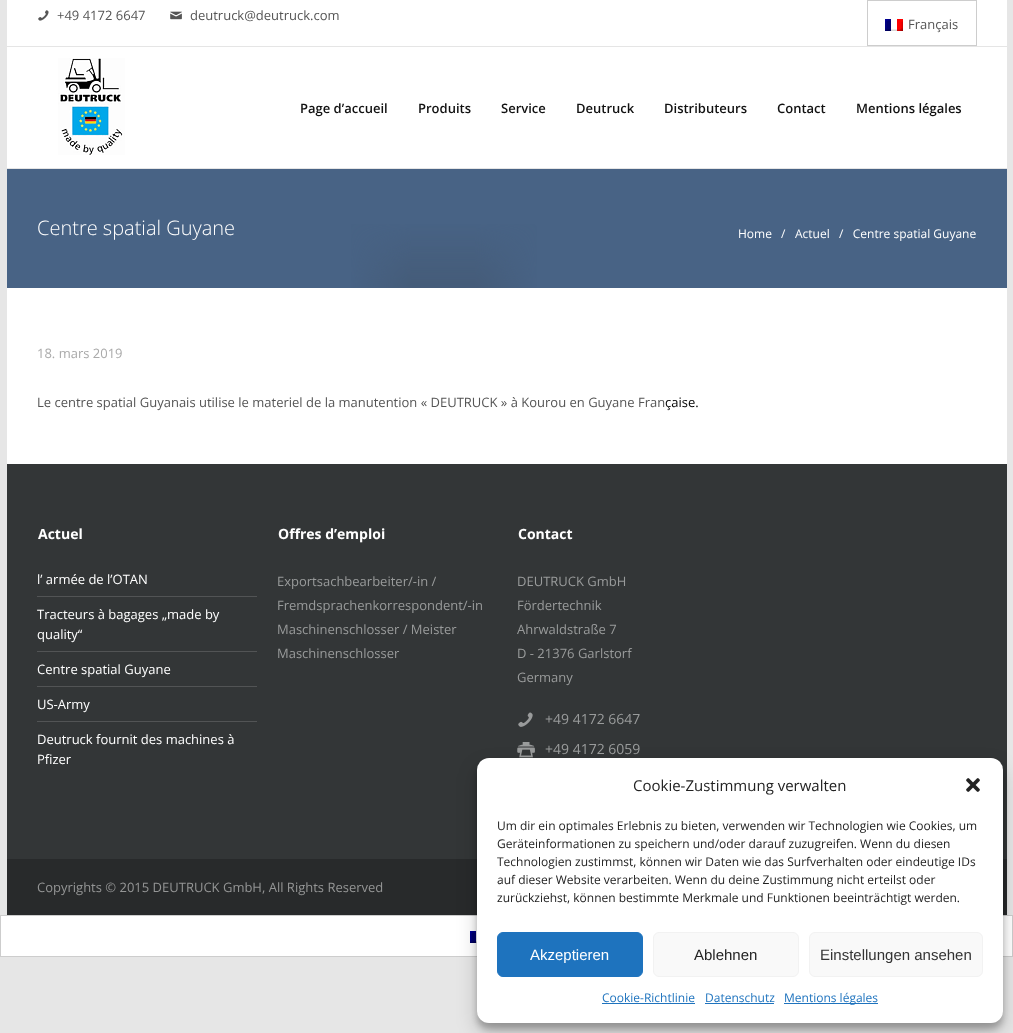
<svg xmlns="http://www.w3.org/2000/svg" xmlns:xlink="http://www.w3.org/1999/xlink" width="1013" height="1033" viewBox="0 0 1013 1033">
<style>
.cls-1{font:13px Open Sans;fill:#555555}
.cls-2{font:600 13px Open Sans;fill:#111111}
.cls-3{font:300 20px Open Sans;fill:#ffffff}
.cls-4{font:12px Open Sans;fill:#ffffff}
.cls-5{font:13px Open Sans;fill:#aaaaaa}
.cls-6{font:13px Open Sans;fill:#000000}
.cls-7{font:bold 14px Open Sans;fill:#ffffff}
.cls-8{font:13px Open Sans;fill:#ffffff}
.cls-9{font:13px Open Sans;fill:#999b9b}
.cls-10{font:14px Open Sans;fill:#999b9b}
.cls-11{font:13px Open Sans;fill:#949595}
.cls-12{font:15px Open Sans;fill:#222222}
.cls-13{font:12px Open Sans;fill:#222222}
.cls-14{font:15px Liberation Sans;fill:#ffffff}
.cls-15{font:15px Liberation Sans;fill:#222222}
.cls-16{font:15px Liberation Sans;fill:#333333}
.cls-17{font:12px Open Sans;fill:#1e73be}
</style>
<rect width="100%" height="100%" fill="#e6e6e6"/>
<rect fill="#ffffff" x="7" y="0" width="1000" height="464"/>
<rect fill="#e5e5e5" x="7" y="46" width="1000" height="1"/>
<image xlink:href="image0.png" x="38" y="10" width="11" height="11"/>
<image xlink:href="image1.png" x="170" y="11" width="12" height="9"/>
<rect fill="none" stroke="#cdcdcd" x="867.5" y="0.5" width="109" height="45"/>
<image xlink:href="image2.png" x="885" y="19" width="18" height="12"/>
<rect fill="#e5e5e5" x="7" y="168" width="1000" height="1"/>
<image xlink:href="image3.png" x="58" y="58" width="67" height="97"/>
<rect fill="#486385" x="7" y="169" width="1000" height="119"/>
<image xlink:href="image4.png" x="351" y="224" width="186" height="64"/>
<rect fill="#333637" x="7" y="464" width="1000" height="395"/>
<rect fill="#525455" x="37" y="596" width="220" height="1"/>
<rect fill="#525455" x="37" y="651" width="220" height="1"/>
<rect fill="#525455" x="37" y="686" width="220" height="1"/>
<rect fill="#525455" x="37" y="721" width="220" height="1"/>
<image xlink:href="image5.png" x="518" y="712" width="15" height="15"/>
<image xlink:href="image6.png" x="517" y="742" width="18" height="16"/>
<rect fill="#282a2b" x="7" y="859" width="1000" height="56"/>
<rect fill="#ffffff" stroke="#cdcdcd" x="0.5" y="915.5" width="1012" height="41"/>
<image xlink:href="image8.png" x="470" y="931" width="7" height="12"/>
<rect fill="#000000" fill-opacity="0.23" filter="blur(3px)" x="477" y="764" width="526" height="265" rx="12"/>
<rect fill="#000000" fill-opacity="0.19" filter="blur(10px)" x="477" y="768" width="526" height="265" rx="12"/>
<rect fill="#ffffff" x="477" y="758" width="526" height="265" rx="12"/>
<image xlink:href="image7.png" x="966" y="778" width="14" height="14"/>
<rect fill="#1e73be" stroke="#1e73be" x="497.5" y="932.5" width="145" height="44" rx="5.5"/>
<rect fill="#f9f9f9" stroke="#f2f2f2" x="653.5" y="932.5" width="145" height="44" rx="5.5"/>
<rect fill="#f9f9f9" stroke="#f2f2f2" x="809.5" y="932.5" width="173" height="44" rx="5.5"/>
<rect fill="#1e73be" x="602" y="1003" width="93" height="1"/>
<rect fill="#1e73be" x="705" y="1003" width="69" height="1"/>
<rect fill="#1e73be" x="784" y="1003" width="94" height="1"/>
<text class="cls-1" x="57" y="20">+49 4172 6647</text>
<text class="cls-1" x="190" y="20">deutruck@deutruck.com</text>
<text class="cls-1" x="908" y="29">Français</text>
<text class="cls-2" x="300" y="113">Page d’accueil</text>
<text class="cls-2" x="418" y="113">Produits</text>
<text class="cls-2" x="501" y="113">Service</text>
<text class="cls-2" x="576" y="113">Deutruck</text>
<text class="cls-2" x="664" y="113">Distributeurs</text>
<text class="cls-2" x="777" y="113">Contact</text>
<text class="cls-2" x="856" y="113">Mentions légales</text>
<text class="cls-3" x="37" y="235">Centre spatial Guyane</text>
<text class="cls-4" x="738" y="238">Home</text>
<text class="cls-4" x="781" y="238">/</text>
<text class="cls-4" x="795" y="238">Actuel</text>
<text class="cls-4" xml:space="preserve" x="839" y="238">/   Centre spatial Guyane</text>
<text class="cls-5" x="37" y="358">18. mars 2019</text>
<text class="cls-1" x="37" y="407">Le centre spatial Guyanais utilise le materiel de la manutention « DEUTRUCK » à Kourou en Guyane Fran</text>
<text class="cls-6" x="665" y="407">çaise.</text>
<text class="cls-7" x="38" y="539">Actuel</text>
<text class="cls-8" x="37" y="584">l’ armée de l’OTAN</text>
<text class="cls-8"><tspan x="37" y="619">Tracteurs à bagages „made by</tspan><tspan x="37" y="639">quality“</tspan></text>
<text class="cls-8" x="37" y="674">Centre spatial Guyane</text>
<text class="cls-8" x="37" y="709">US-Army</text>
<text class="cls-8"><tspan x="37" y="744">Deutruck fournit des machines à</tspan><tspan x="37" y="764">Pfizer</tspan></text>
<text class="cls-7" x="278" y="539">Offres d’emploi</text>
<text class="cls-9"><tspan x="277" y="586">Exportsachbearbeiter/-in /</tspan><tspan x="277" y="610">Fremdsprachenkorrespondent/-in</tspan><tspan x="277" y="634">Maschinenschlosser / Meister</tspan><tspan x="277" y="658">Maschinenschlosser</tspan></text>
<text class="cls-7" x="518" y="539">Contact</text>
<text class="cls-9"><tspan x="517" y="586">DEUTRUCK GmbH</tspan><tspan x="517" y="610">Fördertechnik</tspan><tspan x="517" y="634">Ahrwaldstraße 7</tspan><tspan x="517" y="658">D - 21376 Garlstorf</tspan><tspan x="517" y="682">Germany</tspan></text>
<text class="cls-10" x="545" y="724">+49 4172 6647</text>
<text class="cls-10" x="545" y="754">+49 4172 6059</text>
<text class="cls-11" x="37" y="892">Copyrights © 2015 DEUTRUCK GmbH, All Rights Reserved</text>
<text class="cls-12" x="633" y="791">Cookie-Zustimmung verwalten</text>
<text class="cls-13"><tspan x="497" y="830">Um dir ein optimales Erlebnis zu bieten, verwenden wir Technologien wie Cookies, um</tspan><tspan x="497" y="848">Geräteinformationen zu speichern und/oder darauf zuzugreifen. Wenn du diesen</tspan><tspan x="497" y="866">Technologien zustimmst, können wir Daten wie das Surfverhalten oder eindeutige IDs</tspan><tspan x="497" y="884">auf dieser Website verarbeiten. Wenn du deine Zustimmung nicht erteilst oder</tspan><tspan x="497" y="902">zurückziehst, können bestimmte Merkmale und Funktionen beeinträchtigt werden.</tspan></text>
<text class="cls-14" x="530" y="960">Akzeptieren</text>
<text class="cls-15" x="694" y="960">Ablehnen</text>
<text class="cls-16" x="820" y="960">Einstellungen ansehen</text>
<text class="cls-17" x="602" y="1002">Cookie-Richtlinie</text>
<text class="cls-17" x="705" y="1002">Datenschutz</text>
<text class="cls-17" x="784" y="1002">Mentions légales</text>
</svg>
